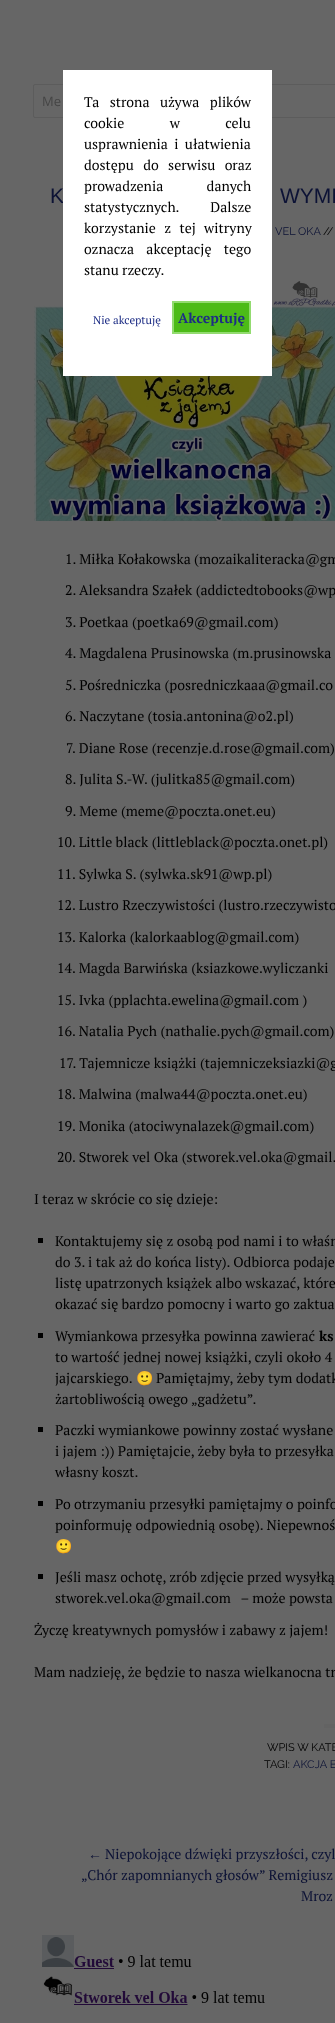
<svg xmlns="http://www.w3.org/2000/svg" xmlns:xlink="http://www.w3.org/1999/xlink" width="335" height="2023" viewBox="0 0 335 2023">
<style>
.cls-1{font:13px Open Sans;fill:#454545}
.cls-2{font:21px Liberation Sans;fill:#0c1235}
.cls-3{font:11px Raleway;fill:#0c1235}
.cls-4{font:11px Raleway;fill:#000000}
.cls-5{font:14px PT Serif;fill:#000000}
.cls-6{font:bold 14px PT Serif;fill:#000000}
.cls-7{font:14px Noto Color Emoji;fill:#000000}
.cls-8{font:14px Liberation Serif;fill:#0c1235}
.cls-9{font:14px PT Serif;fill:#0c1235}
.cls-10{font:11.25px PT Serif;fill:#1d2d85}
.cls-11{font:bold 14px PT Serif;fill:#1d2d85}
</style>
<rect width="100%" height="100%" fill="#666666"/>
<rect fill="none" stroke="#5c5c5c" x="33.5" y="84.5" width="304" height="33" rx="1.5"/>
<image xlink:href="image0.png" x="34" y="280" width="301" height="241"/>
<rect fill="#000000" x="38" y="1238" width="5" height="5"/>
<rect fill="#000000" x="38" y="1333" width="5" height="5"/>
<rect fill="#000000" x="38" y="1427" width="5" height="5"/>
<rect fill="#000000" x="38" y="1501" width="5" height="5"/>
<rect fill="#000000" x="38" y="1574" width="5" height="5"/>
<rect fill="#636363" x="324" y="1724" width="11" height="4"/>
<image xlink:href="image1.png" x="42" y="1935" width="223" height="70"/>
<text class="cls-1" x="42" y="106">Me</text>
<text class="cls-2" x="50" y="203">K</text>
<text class="cls-2" x="280" y="203">WYMI</text>
<text class="cls-3" x="275" y="235">VEL OKA</text>
<text class="cls-4" x="323" y="235">//</text>
<text class="cls-5" x="65" y="564">1. Miłka Kołakowska (mozaikaliteracka@gm</text>
<text class="cls-5" x="65" y="595">2. Aleksandra Szałek (addictedtobooks@wp</text>
<text class="cls-5" x="65" y="627">3. Poetkaa (poetka69@gmail.com)</text>
<text class="cls-5" x="65" y="658">4. Magdalena Prusinowska (m.prusinowska</text>
<text class="cls-5" x="65" y="690">5. Pośredniczka (posredniczkaaa@gmail.co</text>
<text class="cls-5" x="65" y="721">6. Naczytane (tosia.antonina@o2.pl)</text>
<text class="cls-5" x="66" y="753">7. Diane Rose (recenzje.d.rose@gmail.com)</text>
<text class="cls-5" x="65" y="784">8. Julita S.-W. (julitka85@gmail.com)</text>
<text class="cls-5" x="65" y="816">9. Meme (meme@poczta.onet.eu)</text>
<text class="cls-5" x="57" y="847">10. Little black (littleblack@poczta.onet.pl)</text>
<text class="cls-5" x="57" y="879">11. Sylwka S. (sylwka.sk91@wp.pl)</text>
<text class="cls-5" x="57" y="910">12. Lustro Rzeczywistości (lustro.rzeczywisto</text>
<text class="cls-5" x="57" y="942">13. Kalorka (kalorkaablog@gmail.com)</text>
<text class="cls-5" x="57" y="973">14. Magda Barwińska (ksiazkowe.wyliczanki</text>
<text class="cls-5" x="57" y="1005">15. Ivka (pplachta.ewelina@gmail.com )</text>
<text class="cls-5" x="57" y="1036">16. Natalia Pych (nathalie.pych@gmail.com)</text>
<text class="cls-5" x="59" y="1068">17. Tajemnicze książki (tajemniczeksiazki@g</text>
<text class="cls-5" x="57" y="1099">18. Malwina (malwa44@poczta.onet.eu)</text>
<text class="cls-5" x="57" y="1131">19. Monika (atociwynalazek@gmail.com)</text>
<text class="cls-5" x="57" y="1162">20. Stworek vel Oka (stworek.vel.oka@gmail.</text>
<text class="cls-5" x="34" y="1204">I teraz w skrócie co się dzieje:</text>
<text class="cls-5"><tspan x="55" y="1246">Kontaktujemy się z osobą pod nami i to właśn</tspan><tspan x="55" y="1267">do 3. i tak aż do końca listy). Odbiorca podaje</tspan><tspan x="55" y="1288">listę upatrzonych książek albo wskazać, które</tspan><tspan x="55" y="1309">okazać się bardzo pomocny i warto go zaktua</tspan></text>
<text class="cls-5" x="55" y="1341">Wymiankowa przesyłka powinna zawierać</text>
<text class="cls-6" x="319" y="1341">ks</text>
<text class="cls-5"><tspan x="55" y="1362">to wartość jednej nowej książki, czyli około 4</tspan><tspan x="55" y="1383">jajcarskiego.</tspan></text>
<text class="cls-7" x="136" y="1383">🙂</text>
<text class="cls-5" x="156" y="1383">Pamiętajmy, żeby tym dodatk</text>
<text class="cls-5" x="55" y="1404">żartobliwością owego „gadżetu”.</text>
<text class="cls-5"><tspan x="55" y="1435">Paczki wymiankowe powinny zostać wysłane</tspan><tspan x="55" y="1456">i jajem :)) Pamiętajcie, żeby była to przesyłka</tspan><tspan x="55" y="1477">własny koszt.</tspan></text>
<text class="cls-5"><tspan x="55" y="1509">Po otrzymaniu przesyłki pamiętajmy o poinfo</tspan><tspan x="55" y="1530">poinformuję odpowiednią osobę). Niepewnoś</tspan></text>
<text class="cls-7" x="55" y="1551">🙂</text>
<text class="cls-5" xml:space="preserve"><tspan x="55" y="1582">Jeśli masz ochotę, zrób zdjęcie przed wysyłką</tspan><tspan x="55" y="1603">stworek.vel.oka@gmail.com   – może powsta</tspan></text>
<text class="cls-5" x="34" y="1635">Życzę kreatywnych pomysłów i zabawy z jajem!</text>
<text class="cls-5" x="34" y="1677">Mam nadzieję, że będzie to nasza wielkanocna tr</text>
<text class="cls-4" x="267" y="1751">WPIS W KATE</text>
<text class="cls-4" x="264" y="1768">TAGI:</text>
<text class="cls-3" x="293" y="1768">AKCJA B</text>
<text class="cls-8" x="88" y="1859">←</text>
<text class="cls-9" x="105" y="1859">Niepokojące dźwięki przyszłości, czyl</text>
<text class="cls-9" x="81" y="1880">„Chór zapomnianych głosów” Remigiusz</text>
<text class="cls-9" x="301" y="1901">Mroz</text>
<rect fill="#ffffff" x="63" y="70" width="209" height="306"/>
<text class="cls-5"><tspan x="84" y="107" word-spacing="7">Ta strona używa plików</tspan><tspan x="84" y="128" word-spacing="42">cookie w celu</tspan><tspan x="84" y="149" word-spacing="3">usprawnienia i ułatwienia</tspan><tspan x="84" y="170" word-spacing="6">dostępu do serwisu oraz</tspan><tspan x="84" y="191" word-spacing="40">prowadzenia danych</tspan><tspan x="84" y="212" word-spacing="28">statystycznych. Dalsze</tspan><tspan x="84" y="233" word-spacing="5">korzystanie z tej witryny</tspan><tspan x="84" y="254" word-spacing="9">oznacza akceptację tego</tspan><tspan x="84" y="275">stanu rzeczy.</tspan></text>
<text class="cls-10" x="93" y="324">Nie akceptuję</text>
<rect fill="#4cbb17" stroke="#93db70" stroke-width="2" x="173" y="302" width="77" height="31"/>
<text class="cls-11" x="178" y="323">Akceptuję</text>
</svg>
